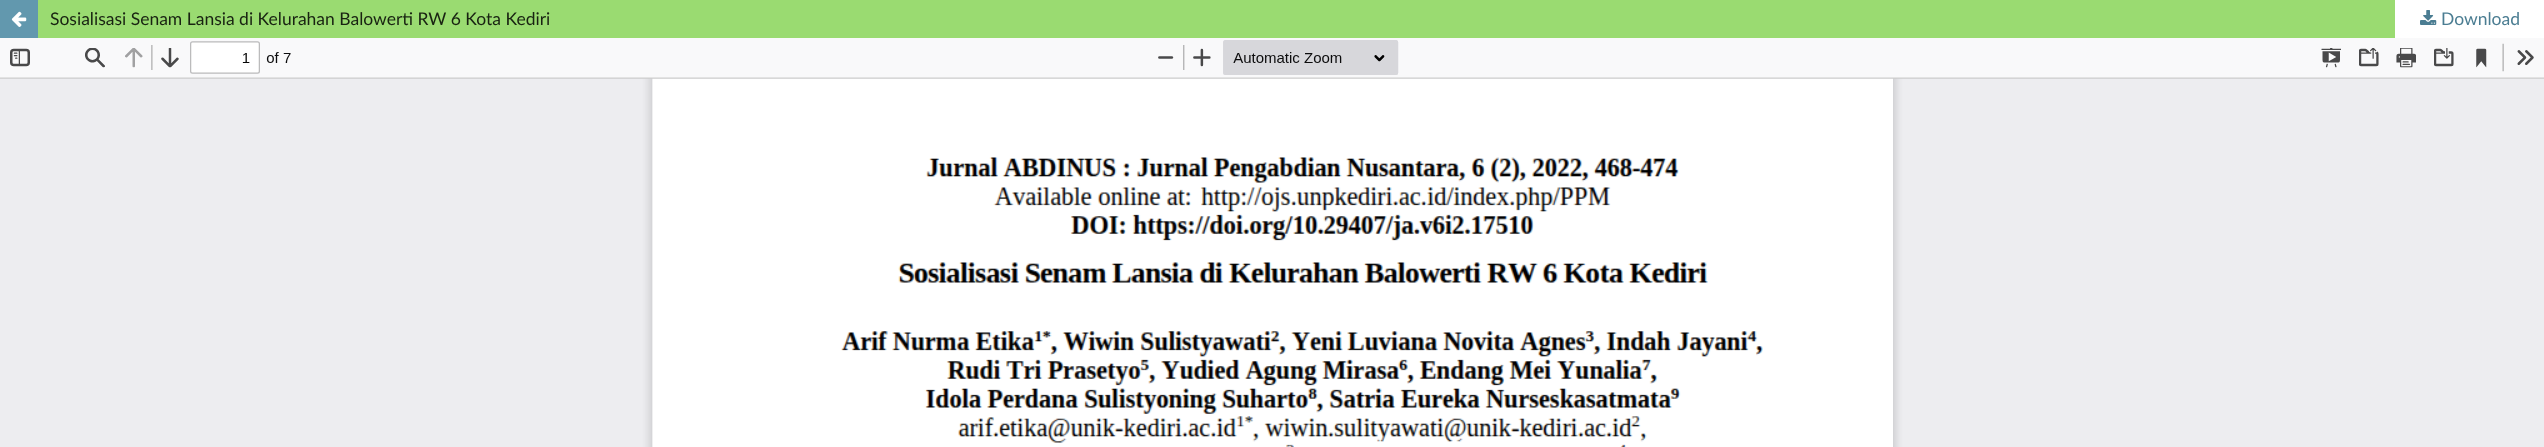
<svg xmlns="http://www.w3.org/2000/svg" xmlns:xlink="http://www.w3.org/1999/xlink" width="2544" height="447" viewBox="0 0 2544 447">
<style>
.cls-1{font:17.5px Lato;fill:#192312}
.cls-2{font:17.5px Lato;fill:#4b7d92}
</style>
<rect width="100%" height="100%" fill="#ffffff"/>
<rect fill="#9adb71" x="38" y="0" width="2357" height="38"/>
<rect fill="#6298ae" x="0" y="0" width="38" height="38"/>
<image xlink:href="image0.png" x="11" y="11" width="16" height="16"/>
<image xlink:href="image1.png" x="2420" y="10" width="17" height="15"/>
<image xlink:href="image2.png" x="0" y="38" width="2544" height="409"/>
<text class="cls-1" x="50" y="25">Sosialisasi Senam Lansia di Kelurahan Balowerti RW 6 Kota Kediri</text>
<text class="cls-2" x="2441" y="25">Download</text>
</svg>
